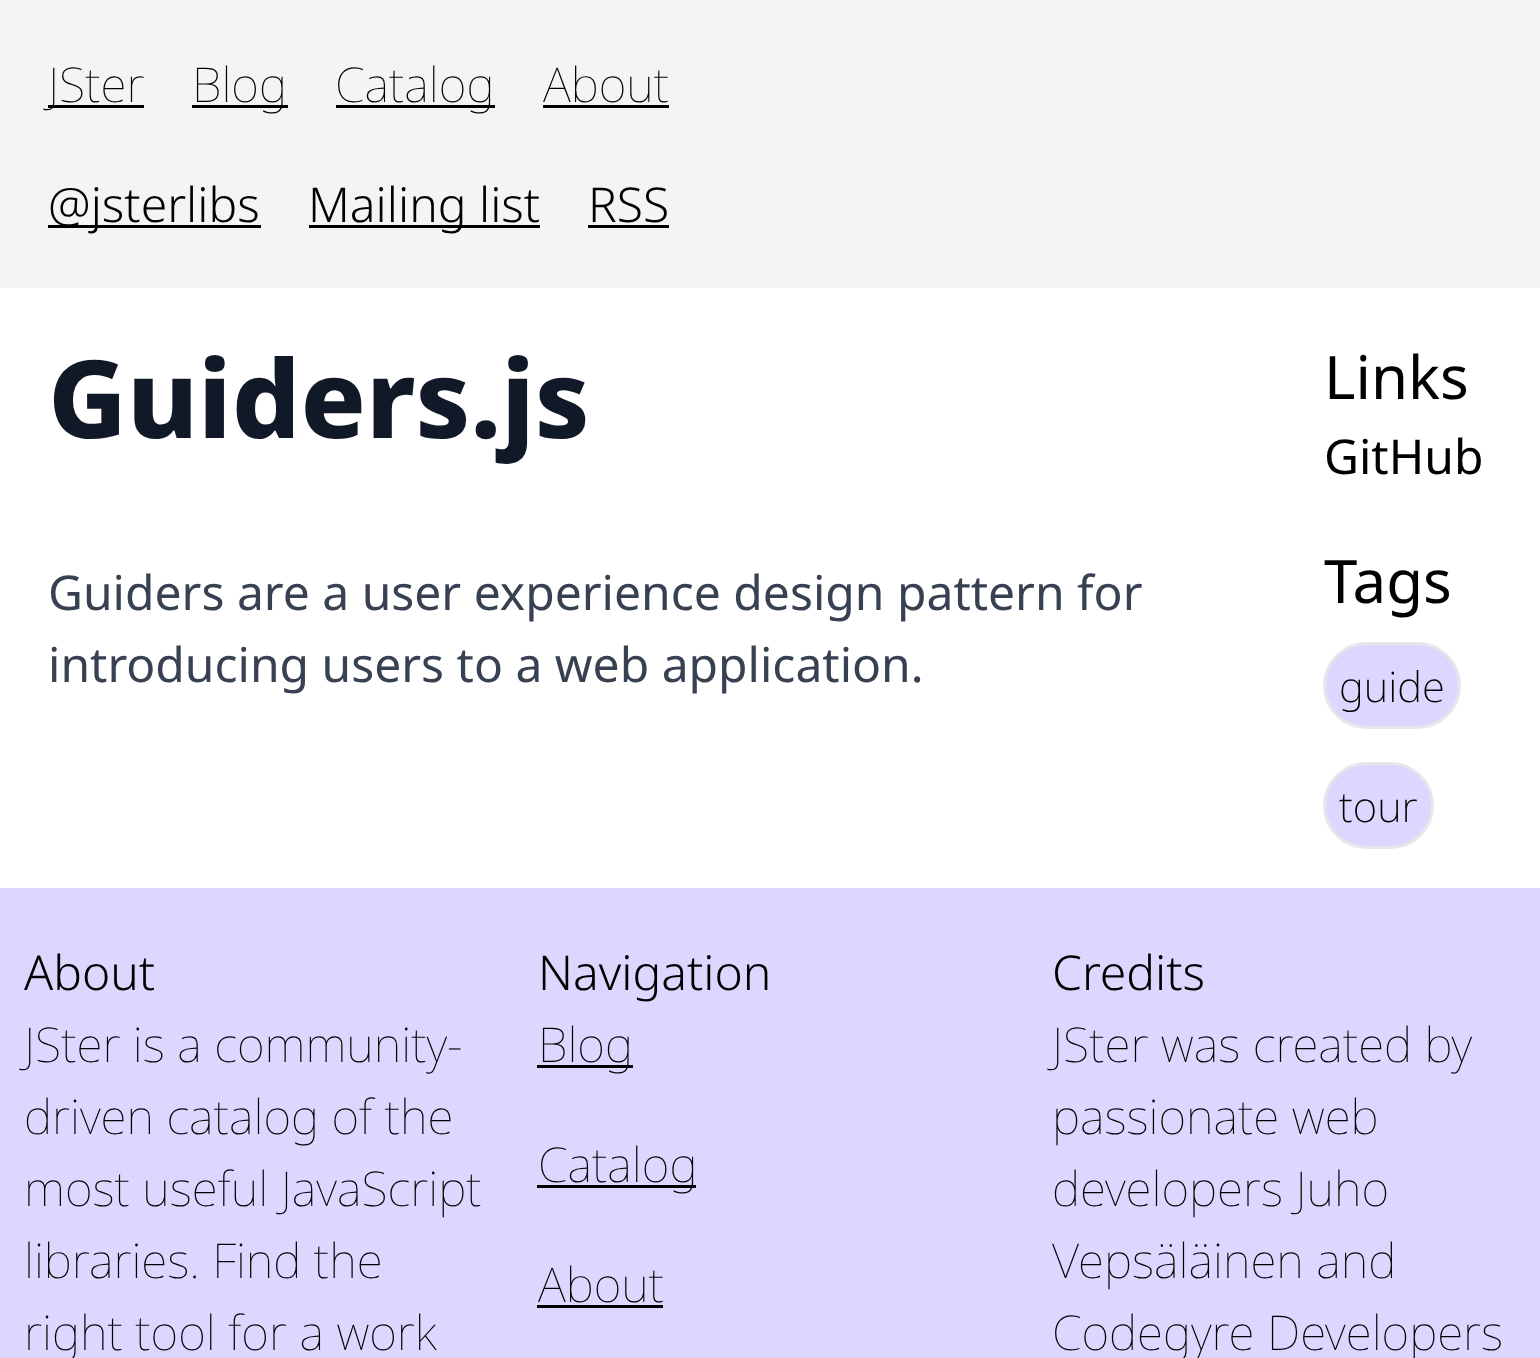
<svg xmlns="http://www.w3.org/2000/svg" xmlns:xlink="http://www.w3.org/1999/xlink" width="1540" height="1358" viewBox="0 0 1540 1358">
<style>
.cls-1{font:100 48px Noto Sans;fill:#000000}
.cls-2{font:300 48px Noto Sans;fill:#000000}
.cls-3{font:800 108px Noto Sans;fill:#111827}
.cls-4{font:48px Noto Sans;fill:#374151}
.cls-5{font:60px Noto Sans;fill:#000000}
.cls-6{font:48px Noto Sans;fill:#000000}
.cls-7{font:200 42px Noto Sans;fill:#000000}
</style>
<rect width="100%" height="100%" fill="#ffffff"/>
<rect fill="#f3f4f6" x="0" y="0" width="1540" height="288"/>
<rect fill="#000000" x="48" y="105" width="96" height="3"/>
<rect fill="#000000" x="192" y="105" width="96" height="3"/>
<rect fill="#000000" x="336" y="105" width="159" height="3"/>
<rect fill="#000000" x="543" y="105" width="126" height="3"/>
<rect fill="#000000" x="48" y="225" width="213" height="3"/>
<rect fill="#000000" x="309" y="225" width="231" height="3"/>
<rect fill="#000000" x="588" y="225" width="81" height="3"/>
<rect fill="#ddd6fe" stroke="#e5e7eb" stroke-width="3" x="1324.5" y="643.5" width="135" height="84" rx="42"/>
<rect fill="#ddd6fe" stroke="#e5e7eb" stroke-width="3" x="1324.5" y="763.5" width="108" height="84" rx="42"/>
<rect fill="#ddd6fe" x="0" y="888" width="1540" height="470"/>
<rect fill="#000000" x="537" y="1065" width="96" height="3"/>
<rect fill="#000000" x="537" y="1185" width="159" height="3"/>
<rect fill="#000000" x="537" y="1305" width="126" height="3"/>
<text class="cls-1" x="48" y="102">JSter</text>
<text class="cls-1" x="192" y="102">Blog</text>
<text class="cls-1" x="335" y="102">Catalog</text>
<text class="cls-1" x="543" y="102">About</text>
<text class="cls-2" x="48" y="222">@jsterlibs</text>
<text class="cls-2" x="308" y="222">Mailing list</text>
<text class="cls-2" x="588" y="222">RSS</text>
<text class="cls-3" x="48" y="438">Guiders.js</text>
<text class="cls-4"><tspan x="48" y="610">Guiders are a user experience design pattern for</tspan><tspan x="48" y="682">introducing users to a web application.</tspan></text>
<text class="cls-5" x="1324" y="399">Links</text>
<text class="cls-6" x="1324" y="474">GitHub</text>
<text class="cls-5" x="1324" y="603">Tags</text>
<text class="cls-7" x="1339" y="702">guide</text>
<text class="cls-7" x="1339" y="822">tour</text>
<text class="cls-2" x="24" y="990">About</text>
<text class="cls-1"><tspan x="24" y="1062">JSter is a community-</tspan><tspan x="24" y="1134">driven catalog of the</tspan><tspan x="24" y="1206">most useful JavaScript</tspan><tspan x="24" y="1278">libraries. Find the</tspan><tspan x="24" y="1350">right tool for a work</tspan></text>
<text class="cls-2" x="538" y="990">Navigation</text>
<text class="cls-1" x="538" y="1062">Blog</text>
<text class="cls-1" x="538" y="1182">Catalog</text>
<text class="cls-1" x="538" y="1302">About</text>
<text class="cls-2" x="1052" y="990">Credits</text>
<text class="cls-1"><tspan x="1052" y="1062">JSter was created by</tspan><tspan x="1052" y="1134">passionate web</tspan><tspan x="1052" y="1206">developers Juho</tspan><tspan x="1052" y="1278">Vepsäläinen and</tspan><tspan x="1052" y="1350">Codegyre Developers</tspan></text>
</svg>
